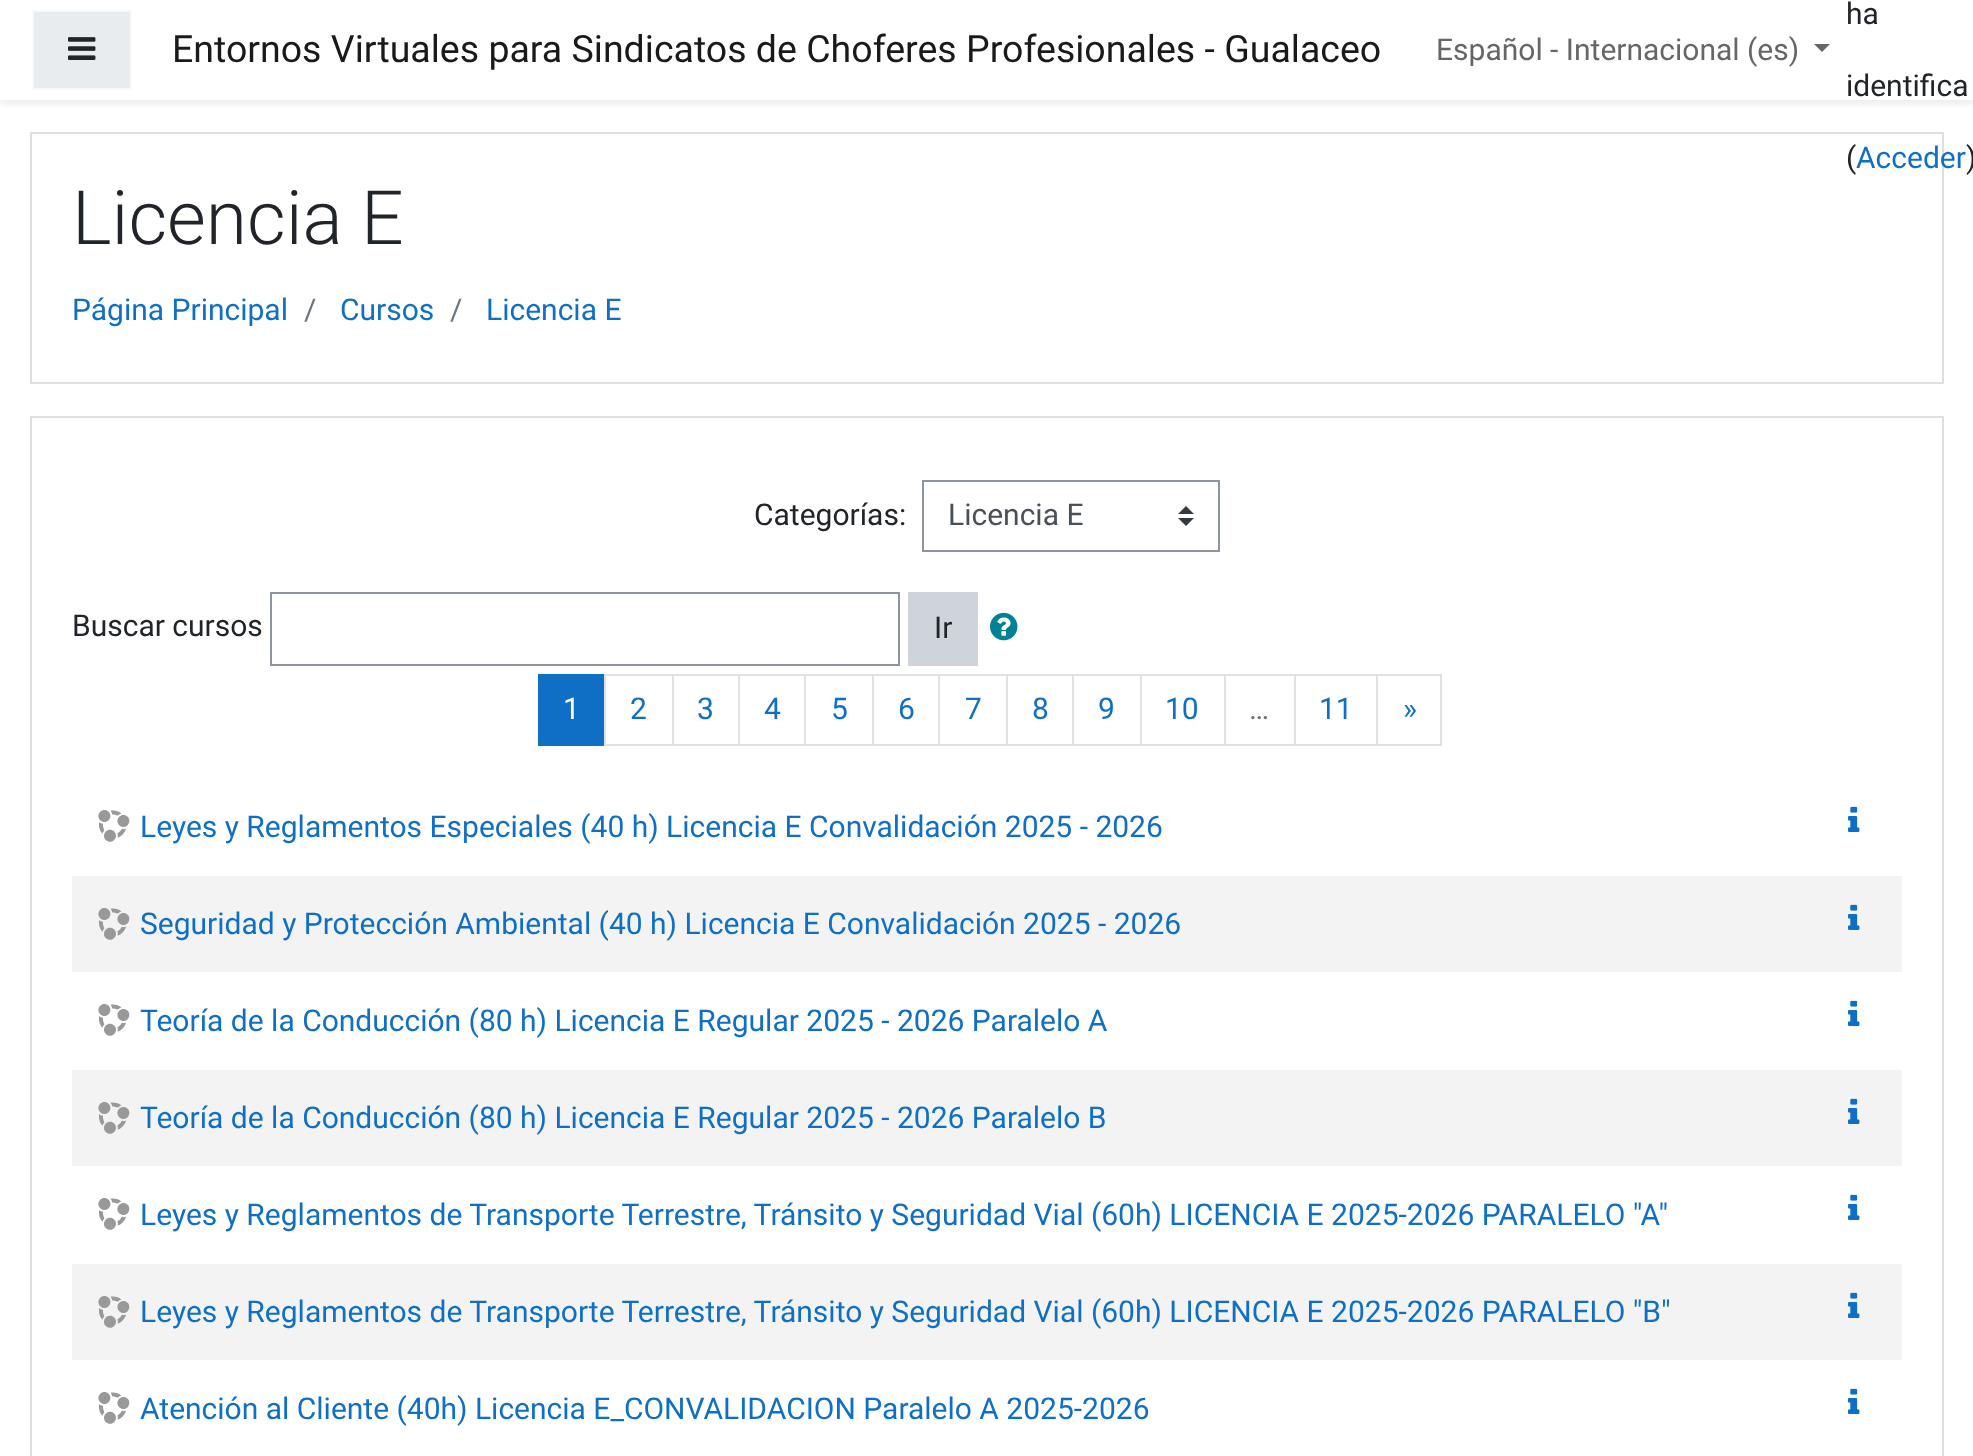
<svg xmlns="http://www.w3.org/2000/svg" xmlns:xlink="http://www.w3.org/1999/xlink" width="1973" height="1456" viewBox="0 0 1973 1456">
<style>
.cls-1{font:37.5px Roboto;fill:#1a1a1a}
.cls-2{font:30px Roboto;fill:#666666}
.cls-3{font:30px Roboto;fill:#212529}
.cls-4{font:30px Roboto;fill:#0f6fc5}
.cls-5{font:300 75px Roboto;fill:#212529}
.cls-6{font:30px Roboto;fill:#6c757d}
.cls-7{font:30px Roboto;fill:#495057}
.cls-8{font:30px Roboto;fill:#ffffff}
</style>
<defs>
<clipPath id="clip1"><rect x="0" y="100" width="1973" height="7"/></clipPath>
</defs>
<rect width="100%" height="100%" fill="#ffffff"/>
<g clip-path="url(#clip1)">
<rect fill="#000000" fill-opacity="0.08" filter="blur(4px)" x="0" y="4" width="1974" height="100"/>
</g>
<rect fill="#e9ecef" stroke="#f8f9fa" stroke-width="2" x="33" y="11" width="98" height="78"/>
<image xlink:href="image0.png" x="68" y="37" width="28" height="23"/>
<path fill="#666666" d="M1814 44H1830L1822 52Z"/>
<rect fill="none" stroke="#dfdfdf" stroke-width="2" x="31" y="133" width="1912" height="250"/>
<rect fill="none" stroke="#dfdfdf" stroke-width="2" x="31" y="417" width="1912" height="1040"/>
<path fill="#343a40" d="M1186 506L1178 514H1194ZM1186 526L1178 518H1194Z"/>
<rect fill="none" stroke="#8f959e" stroke-width="2" x="923" y="481" width="296" height="70"/>
<rect fill="none" stroke="#8f959e" stroke-width="2" x="271" y="593" width="628" height="72"/>
<rect fill="#ced4da" x="908" y="592" width="70" height="74"/>
<image xlink:href="image1.png" x="990" y="612" width="28" height="29"/>
<rect fill="#0f6fc5" x="538" y="674" width="66" height="72"/>
<rect fill="none" stroke="#dee2e6" stroke-width="2" x="605" y="675" width="68" height="70"/>
<rect fill="none" stroke="#dee2e6" stroke-width="2" x="673" y="675" width="66" height="70"/>
<rect fill="none" stroke="#dee2e6" stroke-width="2" x="739" y="675" width="66" height="70"/>
<rect fill="none" stroke="#dee2e6" stroke-width="2" x="805" y="675" width="68" height="70"/>
<rect fill="none" stroke="#dee2e6" stroke-width="2" x="873" y="675" width="66" height="70"/>
<rect fill="none" stroke="#dee2e6" stroke-width="2" x="939" y="675" width="68" height="70"/>
<rect fill="none" stroke="#dee2e6" stroke-width="2" x="1007" y="675" width="66" height="70"/>
<rect fill="none" stroke="#dee2e6" stroke-width="2" x="1073" y="675" width="68" height="70"/>
<rect fill="none" stroke="#dee2e6" stroke-width="2" x="1141" y="675" width="84" height="70"/>
<rect fill="none" stroke="#dee2e6" stroke-width="2" x="1225" y="675" width="70" height="70"/>
<rect fill="none" stroke="#dee2e6" stroke-width="2" x="1295" y="675" width="82" height="70"/>
<rect fill="none" stroke="#dee2e6" stroke-width="2" x="1377" y="675" width="64" height="70"/>
<image xlink:href="image2.png" x="98" y="810" width="32" height="32"/>
<image xlink:href="image3.png" x="1848" y="806" width="12" height="26"/>
<rect fill="#f3f3f3" x="72" y="876" width="1830" height="96"/>
<image xlink:href="image4.png" x="98" y="908" width="32" height="32"/>
<image xlink:href="image5.png" x="1848" y="904" width="12" height="26"/>
<image xlink:href="image6.png" x="98" y="1004" width="32" height="32"/>
<image xlink:href="image3.png" x="1848" y="1000" width="12" height="26"/>
<rect fill="#f3f3f3" x="72" y="1070" width="1830" height="96"/>
<image xlink:href="image4.png" x="98" y="1102" width="32" height="32"/>
<image xlink:href="image5.png" x="1848" y="1098" width="12" height="26"/>
<image xlink:href="image2.png" x="98" y="1198" width="32" height="32"/>
<image xlink:href="image3.png" x="1848" y="1194" width="12" height="26"/>
<rect fill="#f3f3f3" x="72" y="1264" width="1830" height="96"/>
<image xlink:href="image4.png" x="98" y="1296" width="32" height="32"/>
<image xlink:href="image5.png" x="1848" y="1292" width="12" height="26"/>
<image xlink:href="image2.png" x="98" y="1392" width="32" height="32"/>
<image xlink:href="image3.png" x="1848" y="1388" width="12" height="26"/>
<text class="cls-1" x="172" y="62">Entornos Virtuales para Sindicatos de Choferes Profesionales - Gualaceo</text>
<text class="cls-2" x="1436" y="60">Español - Internacional (es)</text>
<text class="cls-3" x="1846" y="24">ha</text>
<text class="cls-3" x="1846" y="96">identifica</text>
<text class="cls-3" x="1846" y="168">(</text>
<text class="cls-4" x="1856" y="168">Acceder</text>
<text class="cls-3" x="1966" y="168">)</text>
<text class="cls-5" x="72" y="244">Licencia E</text>
<text class="cls-4" x="72" y="320">Página Principal</text>
<text class="cls-6" x="304" y="320">/</text>
<text class="cls-4" x="340" y="320">Cursos</text>
<text class="cls-6" x="450" y="320">/</text>
<text class="cls-4" x="486" y="320">Licencia E</text>
<text class="cls-3" x="754" y="525">Categorías:</text>
<text class="cls-7" x="948" y="525">Licencia E</text>
<text class="cls-3" x="72" y="636">Buscar cursos</text>
<text class="cls-3" x="934" y="638">Ir</text>
<text class="cls-8" x="563" y="719">1</text>
<text class="cls-4" x="630" y="719">2</text>
<text class="cls-4" x="697" y="719">3</text>
<text class="cls-4" x="764" y="719">4</text>
<text class="cls-4" x="831" y="719">5</text>
<text class="cls-4" x="898" y="719">6</text>
<text class="cls-4" x="965" y="719">7</text>
<text class="cls-4" x="1032" y="719">8</text>
<text class="cls-4" x="1098" y="719">9</text>
<text class="cls-4" x="1165" y="719">10</text>
<text class="cls-4" x="1319" y="719">11</text>
<text class="cls-4" x="1403" y="719">»</text>
<text class="cls-6" x="1249" y="719">…</text>
<text class="cls-4" x="140" y="837">Leyes y Reglamentos Especiales (40 h) Licencia E Convalidación 2025 - 2026</text>
<text class="cls-4" x="140" y="934">Seguridad y Protección Ambiental (40 h) Licencia E Convalidación 2025 - 2026</text>
<text class="cls-4" x="140" y="1031">Teoría de la Conducción (80 h) Licencia E Regular 2025 - 2026 Paralelo A</text>
<text class="cls-4" x="140" y="1128">Teoría de la Conducción (80 h) Licencia E Regular 2025 - 2026 Paralelo B</text>
<text class="cls-4" x="140" y="1225">Leyes y Reglamentos de Transporte Terrestre, Tránsito y Seguridad Vial (60h) LICENCIA E 2025-2026 PARALELO "A"</text>
<text class="cls-4" x="140" y="1322">Leyes y Reglamentos de Transporte Terrestre, Tránsito y Seguridad Vial (60h) LICENCIA E 2025-2026 PARALELO "B"</text>
<text class="cls-4" x="140" y="1419">Atención al Cliente (40h) Licencia E_CONVALIDACION Paralelo A 2025-2026</text>
</svg>
